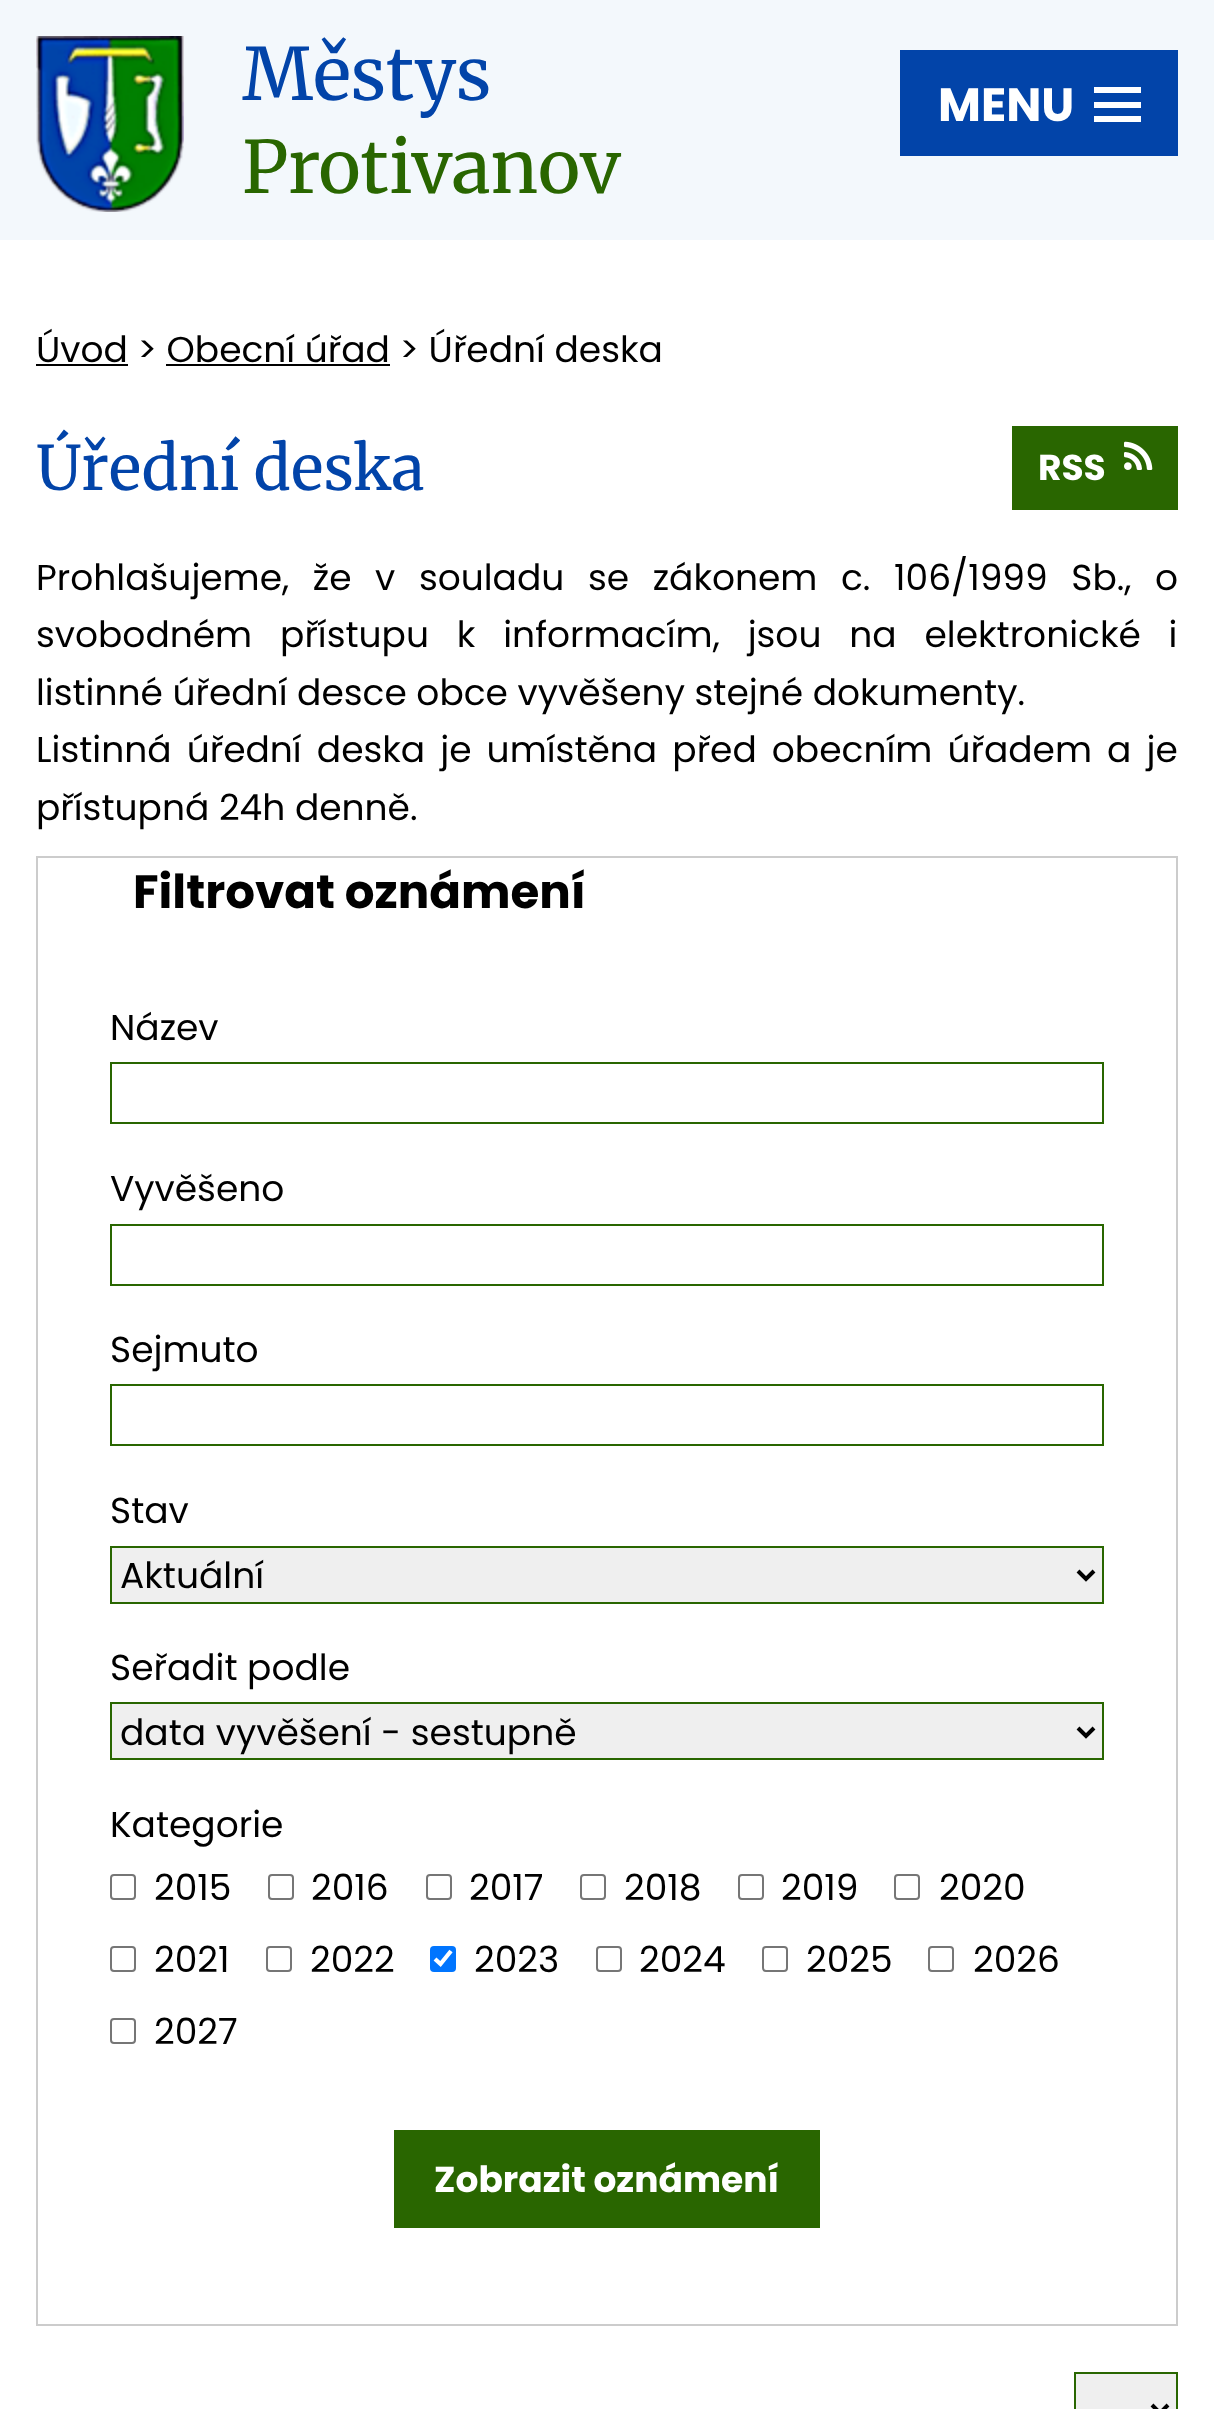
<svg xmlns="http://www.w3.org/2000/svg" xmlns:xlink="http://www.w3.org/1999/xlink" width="1214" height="2409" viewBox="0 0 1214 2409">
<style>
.cls-1{font:72px Merriweather;fill:#0244a9}
.cls-2{font:72px Merriweather;fill:#296600}
.cls-3{font:bold 46.75px Poppins;fill:#ffffff}
.cls-4{font:36px Poppins;fill:#000000}
.cls-5{font:61.25px Merriweather;fill:#0244a9}
.cls-6{font:bold 36px Poppins;fill:#ffffff}
.cls-7{font:bold 46.75px Poppins;fill:#000000}
</style>
<rect width="100%" height="100%" fill="#ffffff"/>
<rect fill="#f3f8fc" x="0" y="0" width="1214" height="240"/>
<image xlink:href="image0.png" x="36" y="36" width="148" height="176"/>
<rect fill="#0244a9" x="900" y="50" width="278" height="106"/>
<path fill="#ffffff" d="M1094 122V116H1141V122ZM1094 87H1141V93H1094ZM1094 108V102H1141V108Z"/>
<rect fill="#000000" x="36" y="364" width="92" height="2"/>
<rect fill="#000000" x="166" y="364" width="224" height="2"/>
<rect fill="#296600" x="1012" y="426" width="166" height="84"/>
<image xlink:href="image1.png" x="1124" y="441" width="29" height="29"/>
<rect fill="none" stroke="#cccccc" stroke-width="2" x="37" y="857" width="1140" height="1468"/>
<rect fill="none" stroke="#296600" stroke-width="2" x="111" y="1063" width="992" height="60"/>
<rect fill="none" stroke="#296600" stroke-width="2" x="111" y="1225" width="992" height="60"/>
<rect fill="none" stroke="#296600" stroke-width="2" x="111" y="1385" width="992" height="60"/>
<rect fill="#efefef" stroke="#296600" stroke-width="2" x="111" y="1547" width="992" height="56"/>
<path fill="none" stroke="#000000" stroke-width="4" d="M1078 1571L1086 1579L1094 1571"/>
<rect fill="#efefef" stroke="#296600" stroke-width="2" x="111" y="1703" width="992" height="56"/>
<path fill="none" stroke="#000000" stroke-width="4" d="M1078 1728L1086 1736L1094 1728"/>
<rect fill="none" stroke="#767676" stroke-width="2" x="111" y="1875" width="24" height="24" rx="3"/>
<rect fill="none" stroke="#767676" stroke-width="2" x="269" y="1875" width="24" height="24" rx="3"/>
<rect fill="none" stroke="#767676" stroke-width="2" x="427" y="1875" width="24" height="24" rx="3"/>
<rect fill="none" stroke="#767676" stroke-width="2" x="581" y="1875" width="24" height="24" rx="3"/>
<rect fill="none" stroke="#767676" stroke-width="2" x="739" y="1875" width="24" height="24" rx="3"/>
<rect fill="none" stroke="#767676" stroke-width="2" x="895" y="1875" width="24" height="24" rx="3"/>
<rect fill="none" stroke="#767676" stroke-width="2" x="111" y="1947" width="24" height="24" rx="3"/>
<rect fill="none" stroke="#767676" stroke-width="2" x="267" y="1947" width="24" height="24" rx="3"/>
<rect fill="#0075ff" x="430" y="1946" width="26" height="26" rx="4"/>
<path fill="none" stroke="#ffffff" stroke-width="4.2" d="M435 1959L440.5 1964L451 1951"/>
<rect fill="none" stroke="#767676" stroke-width="2" x="597" y="1947" width="24" height="24" rx="3"/>
<rect fill="none" stroke="#767676" stroke-width="2" x="763" y="1947" width="24" height="24" rx="3"/>
<rect fill="none" stroke="#767676" stroke-width="2" x="929" y="1947" width="24" height="24" rx="3"/>
<rect fill="none" stroke="#767676" stroke-width="2" x="111" y="2019" width="24" height="24" rx="3"/>
<rect fill="#296600" x="394" y="2130" width="426" height="98"/>
<rect fill="#efefef" stroke="#296600" stroke-width="2" x="1075" y="2373" width="102" height="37"/>
<path fill="none" stroke="#000000" stroke-width="4" d="M1152 2405L1160 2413L1168 2405"/>
<text class="cls-1" x="242" y="100">Městys</text>
<text class="cls-2" x="242" y="193">Protivanov</text>
<text class="cls-3" x="938" y="121">MENU</text>
<text class="cls-4" x="36" y="362">Úvod &gt; Obecní úřad &gt; Úřední deska</text>
<text class="cls-5" x="36" y="490">Úřední deska</text>
<text class="cls-6" x="1038" y="480">RSS</text>
<text class="cls-4"><tspan x="36" y="590" word-spacing="14">Prohlašujeme, že v souladu se zákonem c. 106/1999 Sb., o</tspan><tspan x="36" y="647" word-spacing="18.25">svobodném přístupu k informacím, jsou na elektronické i</tspan><tspan x="36" y="705">listinné úřední desce obce vyvěšeny stejné dokumenty.</tspan><tspan x="36" y="762" word-spacing="5.5">Listinná úřední deska je umístěna před obecním úřadem a je</tspan><tspan x="36" y="820">přístupná 24h denně.</tspan></text>
<text class="cls-7" x="133" y="908">Filtrovat oznámení</text>
<text class="cls-4" x="110" y="1040">Název</text>
<text class="cls-4" x="110" y="1201">Vyvěšeno</text>
<text class="cls-4" x="110" y="1362">Sejmuto</text>
<text class="cls-4" x="110" y="1523">Stav</text>
<text class="cls-4" x="120" y="1588">Aktuální</text>
<text class="cls-4" x="110" y="1680">Seřadit podle</text>
<text class="cls-4" x="120" y="1745">data vyvěšení - sestupně</text>
<text class="cls-4" x="110" y="1837">Kategorie</text>
<text class="cls-4" x="154" y="1900">2015</text>
<text class="cls-4" x="311" y="1900">2016</text>
<text class="cls-4" x="469" y="1900">2017</text>
<text class="cls-4" x="624" y="1900">2018</text>
<text class="cls-4" x="781" y="1900">2019</text>
<text class="cls-4" x="939" y="1900">2020</text>
<text class="cls-4" x="154" y="1972">2021</text>
<text class="cls-4" x="310" y="1972">2022</text>
<text class="cls-4" x="474" y="1972">2023</text>
<text class="cls-4" x="639" y="1972">2024</text>
<text class="cls-4" x="806" y="1972">2025</text>
<text class="cls-4" x="973" y="1972">2026</text>
<text class="cls-4" x="154" y="2044">2027</text>
<text class="cls-6" x="434" y="2192">Zobrazit oznámení</text>
</svg>
